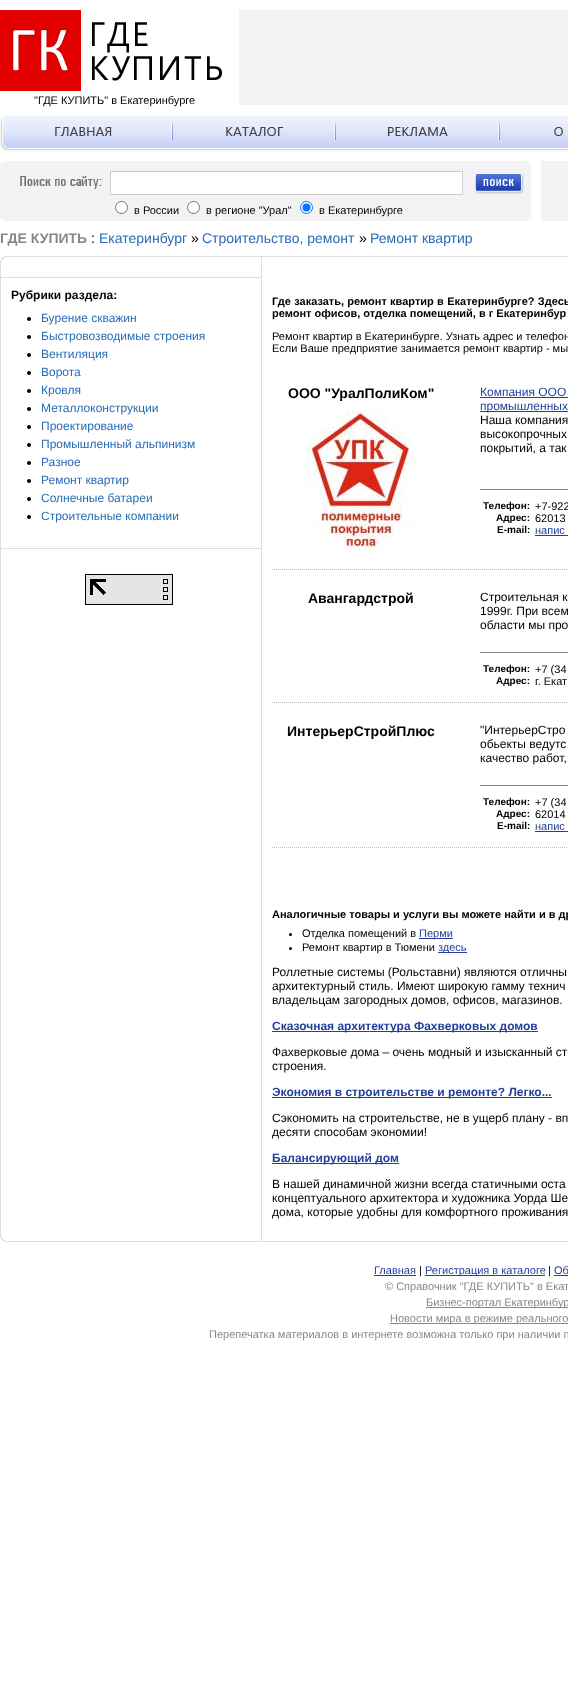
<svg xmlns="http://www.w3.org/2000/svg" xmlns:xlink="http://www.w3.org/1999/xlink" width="568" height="1683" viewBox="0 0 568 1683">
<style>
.cls-1{font:11px Liberation Sans;fill:#000000}
.cls-2{font:bold 14px Liberation Sans;fill:#888888}
.cls-3{font:14px Liberation Sans;fill:#000000}
.cls-4{font:14px Liberation Sans;fill:#286cb5}
.cls-5{font:bold 12px Liberation Sans;fill:#000000}
.cls-6{font:12px Liberation Sans;fill:#286cb5}
.cls-7{font:bold 11px Liberation Sans;fill:#000000}
.cls-8{font:bold 14px Liberation Sans;fill:#000000}
.cls-9{font:12px Liberation Sans;fill:#22419d}
.cls-10{font:12px Liberation Sans;fill:#000000}
.cls-11{font:bold 10px Liberation Sans;fill:#000000}
.cls-12{font:11px Liberation Sans;fill:#22419d}
.cls-13{font:bold 12px Liberation Sans;fill:#22419d}
.cls-14{font:11px Liberation Sans;fill:#888888}
</style>
<rect width="100%" height="100%" fill="#ffffff"/>
<image xlink:href="image0.png" x="0" y="10" width="222" height="81"/>
<rect fill="#f3f3f3" x="239" y="10" width="329" height="95"/>
<image xlink:href="image1.png" x="8" y="115" width="560" height="36"/>
<image xlink:href="image2.png" x="0" y="115" width="8" height="36"/>
<image xlink:href="image3.png" x="171" y="123" width="2" height="17"/>
<image xlink:href="image4.png" x="55" y="127" width="57" height="9"/>
<image xlink:href="image3.png" x="334" y="123" width="2" height="17"/>
<image xlink:href="image5.png" x="226" y="127" width="58" height="9"/>
<image xlink:href="image3.png" x="498" y="123" width="2" height="17"/>
<image xlink:href="image6.png" x="388" y="127" width="60" height="9"/>
<image xlink:href="image7.png" x="554" y="127" width="9" height="9"/>
<rect fill="#f3f3f3" x="0" y="161" width="531" height="60"/>
<rect fill="#fafafa" x="0" y="161" width="3" height="3"/>
<rect fill="#fafafa" x="528" y="161" width="3" height="3"/>
<image xlink:href="image8.png" x="20" y="176" width="82" height="13"/>
<rect fill="#ffffff" stroke="#cccccc" x="110.5" y="171.5" width="352" height="23"/>
<image xlink:href="image9.png" x="475" y="173" width="49" height="21"/>
<circle fill="#ffffff" stroke="#767676" cx="121.5" cy="207.5" r="6"/>
<circle fill="#ffffff" stroke="#767676" cx="193.5" cy="207.5" r="6"/>
<circle fill="#ffffff" stroke="#0075ff" cx="306.5" cy="207.5" r="6"/>
<circle fill="#0075ff" cx="306.5" cy="207.5" r="4"/>
<rect fill="#fafafa" x="0" y="218" width="3" height="3"/>
<rect fill="#fafafa" x="528" y="218" width="3" height="3"/>
<rect fill="#f3f3f3" x="541" y="161" width="27" height="60"/>
<rect fill="#dddddd" x="261" y="256" width="1" height="986"/>
<rect fill="none" stroke="#dddddd" x="0.5" y="256.5" width="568" height="985"/>
<image xlink:href="image10.png" x="0" y="256" width="6" height="6"/>
<rect fill="#dddddd" x="1" y="277" width="260" height="1"/>
<rect fill="#dddddd" x="1" y="548" width="260" height="1"/>
<circle fill="#000000" cx="29" cy="319" r="2"/>
<circle fill="#000000" cx="29" cy="337" r="2"/>
<circle fill="#000000" cx="29" cy="355" r="2"/>
<circle fill="#000000" cx="29" cy="373" r="2"/>
<circle fill="#000000" cx="29" cy="391" r="2"/>
<circle fill="#000000" cx="29" cy="409" r="2"/>
<circle fill="#000000" cx="29" cy="427" r="2"/>
<circle fill="#000000" cx="29" cy="445" r="2"/>
<circle fill="#000000" cx="29" cy="463" r="2"/>
<circle fill="#000000" cx="29" cy="481" r="2"/>
<circle fill="#000000" cx="29" cy="499" r="2"/>
<circle fill="#000000" cx="29" cy="517" r="2"/>
<image xlink:href="image11.png" x="85" y="574" width="88" height="31"/>
<path fill="none" stroke="#bbbbbb" stroke-dasharray="1 1" d="M272 569.5H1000"/>
<image xlink:href="image12.png" x="306" y="411" width="110" height="140"/>
<rect fill="#22419d" x="480" y="397" width="88" height="1"/>
<rect fill="#22419d" x="480" y="411" width="88" height="1"/>
<rect fill="#888888" x="480" y="489" width="88" height="1"/>
<rect fill="#22419d" x="535" y="535" width="33" height="1"/>
<path fill="none" stroke="#bbbbbb" stroke-dasharray="1 1" d="M272 702.5H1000"/>
<rect fill="#888888" x="480" y="652" width="88" height="1"/>
<path fill="none" stroke="#bbbbbb" stroke-dasharray="1 1" d="M272 847.5H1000"/>
<rect fill="#888888" x="480" y="785" width="88" height="1"/>
<rect fill="#22419d" x="535" y="831" width="33" height="1"/>
<circle fill="#000000" cx="290.5" cy="934.5" r="1.5"/>
<rect fill="#22419d" x="419" y="938" width="34" height="1"/>
<circle fill="#000000" cx="290.5" cy="948.5" r="1.5"/>
<rect fill="#22419d" x="438" y="952" width="29" height="1"/>
<rect fill="#22419d" x="272" y="1031" width="266" height="1"/>
<rect fill="#22419d" x="272" y="1097" width="280" height="1"/>
<rect fill="#22419d" x="272" y="1163" width="127" height="1"/>
<image xlink:href="image13.png" x="0" y="1236" width="6" height="6"/>
<rect fill="#22419d" x="374" y="1275" width="42" height="1"/>
<rect fill="#22419d" x="425" y="1275" width="120" height="1"/>
<rect fill="#22419d" x="554" y="1275" width="14" height="1"/>
<rect fill="#888888" x="426" y="1307" width="142" height="1"/>
<rect fill="#888888" x="390" y="1323" width="178" height="1"/>
<text class="cls-1" x="34" y="104">"ГДЕ КУПИТЬ" в Екатеринбурге</text>
<text class="cls-1" x="134" y="214">в России</text>
<text class="cls-1" x="206" y="214">в регионе "Урал"</text>
<text class="cls-1" x="319" y="214">в Екатеринбурге</text>
<text class="cls-2" x="0" y="243">ГДЕ КУПИТЬ</text>
<text class="cls-3" x="91" y="243">:</text>
<text class="cls-4" x="99" y="243">Екатеринбург</text>
<text class="cls-3" x="191" y="243">»</text>
<text class="cls-4" x="202" y="243">Строительство, ремонт</text>
<text class="cls-3" x="359" y="243">»</text>
<text class="cls-4" x="370" y="243">Ремонт квартир</text>
<text class="cls-5" x="11" y="299">Рубрики раздела:</text>
<text class="cls-6"><tspan x="41" y="322">Бурение скважин</tspan><tspan x="41" y="340">Быстровозводимые строения</tspan><tspan x="41" y="358">Вентиляция</tspan><tspan x="41" y="376">Ворота</tspan><tspan x="41" y="394">Кровля</tspan><tspan x="41" y="412">Металлоконструкции</tspan><tspan x="41" y="430">Проектирование</tspan><tspan x="41" y="448">Промышленный альпинизм</tspan><tspan x="41" y="466">Разное</tspan><tspan x="41" y="484">Ремонт квартир</tspan><tspan x="41" y="502">Солнечные батареи</tspan><tspan x="41" y="520">Строительные компании</tspan></text>
<text class="cls-7"><tspan x="272" y="305" word-spacing="0.25">Где заказать, ремонт квартир в Екатеринбурге? Здесь</tspan><tspan x="272" y="317">ремонт офисов, отделка помещений, в г Екатеринбур</tspan></text>
<text class="cls-1"><tspan x="272" y="340">Ремонт квартир в Екатеринбурге. Узнать адрес и телефон</tspan><tspan x="272" y="352">Если Ваше предприятие занимается ремонт квартир - мы</tspan></text>
<text class="cls-8" x="288" y="398">ООО "УралПолиКом"</text>
<text class="cls-9"><tspan x="480" y="396">Компания ООО</tspan><tspan x="480" y="410">промышленных</tspan></text>
<text class="cls-10"><tspan x="480" y="424">Наша компания</tspan><tspan x="480" y="438">высокопрочных</tspan><tspan x="480" y="452">покрытий, а так</tspan></text>
<text class="cls-11" x="483" y="509">Телефон:</text>
<text class="cls-1" x="535" y="510">+7-922</text>
<text class="cls-11" x="496" y="521">Адрес:</text>
<text class="cls-1" x="535" y="522">62013</text>
<text class="cls-11" x="497" y="533">E-mail:</text>
<text class="cls-12" x="535" y="534">напис</text>
<text class="cls-8" x="308" y="603">Авангардстрой</text>
<text class="cls-10"><tspan x="480" y="601">Строительная к</tspan><tspan x="480" y="615">1999г. При всем</tspan><tspan x="480" y="629">области мы про</tspan></text>
<text class="cls-11" x="483" y="672">Телефон:</text>
<text class="cls-1" x="535" y="673">+7 (34</text>
<text class="cls-11" x="496" y="684">Адрес:</text>
<text class="cls-1" x="535" y="685">г. Екат</text>
<text class="cls-8" x="287" y="736">ИнтерьерСтройПлюс</text>
<text class="cls-10"><tspan x="480" y="734">"ИнтерьерСтро</tspan><tspan x="480" y="748">обьекты ведутс</tspan><tspan x="480" y="762">качество работ,</tspan></text>
<text class="cls-11" x="483" y="805">Телефон:</text>
<text class="cls-1" x="535" y="806">+7 (34</text>
<text class="cls-11" x="496" y="817">Адрес:</text>
<text class="cls-1" x="535" y="818">62014</text>
<text class="cls-11" x="497" y="829">E-mail:</text>
<text class="cls-12" x="535" y="830">напис</text>
<text class="cls-7" x="272" y="918">Аналогичные товары и услуги вы можете найти и в др</text>
<text class="cls-1" x="302" y="937">Отделка помещений в</text>
<text class="cls-12" x="419" y="937">Перми</text>
<text class="cls-1" x="302" y="951">Ремонт квартир в Тюмени</text>
<text class="cls-12" x="438" y="951">здесь</text>
<text class="cls-10"><tspan x="272" y="976">Роллетные системы (Рольставни) являются отличны</tspan><tspan x="272" y="990">архитектурный стиль. Имеют широкую гамму технич</tspan><tspan x="272" y="1004">владельцам загородных домов, офисов, магазинов.</tspan></text>
<text class="cls-13" x="272" y="1030">Сказочная архитектура Фахверковых домов</text>
<text class="cls-10"><tspan x="272" y="1056">Фахверковые дома – очень модный и изысканный ст</tspan><tspan x="272" y="1070">строения.</tspan></text>
<text class="cls-13" x="272" y="1096">Экономия в строительстве и ремонте? Легко...</text>
<text class="cls-10"><tspan x="272" y="1122">Сэкономить на строительстве, не в ущерб плану - вп</tspan><tspan x="272" y="1136">десяти способам экономии!</tspan></text>
<text class="cls-13" x="272" y="1162">Балансирующий дом</text>
<text class="cls-10"><tspan x="272" y="1188">В нашей динамичной жизни всегда статичными оста</tspan><tspan x="272" y="1202">концептуального архитектора и художника Уорда Ше</tspan><tspan x="272" y="1216">дома, которые удобны для комфортного проживания</tspan></text>
<text class="cls-12" x="374" y="1274">Главная</text>
<text class="cls-1" x="419" y="1274">|</text>
<text class="cls-12" x="425" y="1274">Регистрация в каталоге</text>
<text class="cls-1" x="548" y="1274">|</text>
<text class="cls-12" x="554" y="1274">Об</text>
<text class="cls-14" x="385" y="1290">© Справочник "ГДЕ КУПИТЬ" в Екат</text>
<text class="cls-14" x="426" y="1306">Бизнес-портал Екатеринбур</text>
<text class="cls-14" x="390" y="1322">Новости мира в режиме реального</text>
<text class="cls-14" x="209" y="1338">Перепечатка материалов в интернете возможна только при наличии п</text>
</svg>
